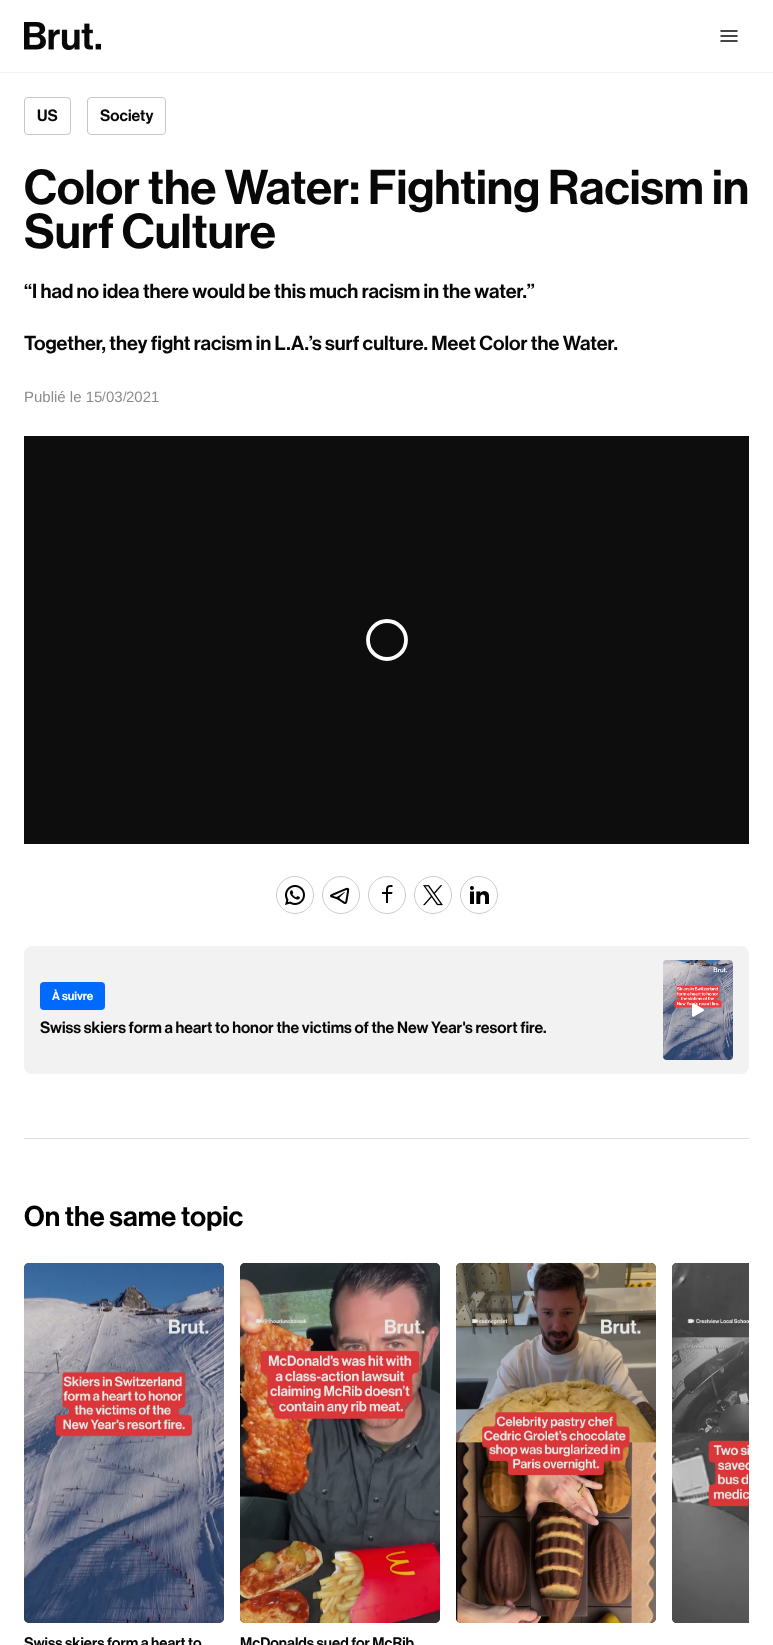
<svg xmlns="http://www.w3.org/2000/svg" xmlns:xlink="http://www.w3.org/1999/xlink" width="773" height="1645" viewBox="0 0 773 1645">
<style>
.cls-1{font:600 16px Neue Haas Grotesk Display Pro;fill:#080808}
.cls-2{font:600 48px Neue Haas Grotesk Display Pro;fill:#080808}
.cls-3{font:600 20px Neue Haas Grotesk Display Pro;fill:#080808}
.cls-4{font:15px Liberation Sans;fill:#8c8c8c}
.cls-5{font:13px Liberation Sans;fill:#8c8c8c}
.cls-6{font:600 12px Neue Haas Grotesk Display Pro;fill:#ffffff}
.cls-7{font:600 28px Neue Haas Grotesk Display Pro;fill:#000000}
.cls-8{font:600 15px Neue Haas Grotesk Display Pro;fill:#080808}
</style>
<rect width="100%" height="100%" fill="#ffffff"/>
<rect fill="#f2f2f2" x="0" y="72" width="773" height="1"/>
<image xlink:href="image0.png" x="24" y="22" width="77" height="28"/>
<path fill="none" stroke="#080808" stroke-width="1.5" stroke-linecap="round" stroke-linejoin="round" d="M721 31H737M721 36H737M721 41H737"/>
<rect fill="none" stroke="#c7c7c7" x="24.5" y="97.5" width="46" height="37" rx="3.5"/>
<rect fill="none" stroke="#c7c7c7" x="87.5" y="97.5" width="78" height="37" rx="3.5"/>
<rect fill="#0d0d0d" x="24" y="436" width="725" height="408"/>
<path fill="none" stroke="#ffffff" stroke-width="3.8" d="M368 640C368 629.5 376.5 621 387 621C397.5 621 406 629.5 406 640C406 650.5 397.5 659 387 659C376.5 659 368 650.5 368 640"/>
<circle fill="none" stroke="#cccccc" cx="295" cy="895" r="18.5"/>
<image xlink:href="image1.png" x="285" y="885" width="20" height="20"/>
<circle fill="none" stroke="#cccccc" cx="341" cy="895" r="18.5"/>
<image xlink:href="image2.png" x="330" y="887" width="20" height="17"/>
<circle fill="none" stroke="#cccccc" cx="387" cy="895" r="18.5"/>
<image xlink:href="image3.png" x="382" y="885" width="11" height="18"/>
<circle fill="none" stroke="#cccccc" cx="433" cy="895" r="18.5"/>
<image xlink:href="image4.png" x="423" y="885" width="20" height="21"/>
<circle fill="none" stroke="#cccccc" cx="479" cy="895" r="18.5"/>
<image xlink:href="image5.png" x="470" y="886" width="19" height="18"/>
<rect fill="#f2f2f2" x="24" y="946" width="725" height="128" rx="8"/>
<rect fill="#006aff" x="40" y="982" width="65" height="28" rx="4"/>
<image xlink:href="image6.png" x="663" y="960" width="70" height="100"/>
<image xlink:href="image7.png" x="692" y="1003" width="12" height="14"/>
<rect fill="#dedede" x="24" y="1138" width="725" height="1"/>
<rect fill="#212121" x="456" y="1263" width="200" height="360" rx="5"/>
<image xlink:href="image8.png" x="456" y="1263" width="200" height="360"/>
<path fill="#212121" d="M677 1263H749V1623H677C674 1623 672 1621 672 1618V1268C672 1265 674 1263 677 1263Z"/>
<image xlink:href="image9.png" x="672" y="1263" width="77" height="360"/>
<rect fill="#212121" x="24" y="1263" width="200" height="360" rx="5"/>
<image xlink:href="image10.png" x="24" y="1263" width="200" height="360"/>
<rect fill="#212121" x="240" y="1263" width="200" height="360" rx="5"/>
<image xlink:href="image11.png" x="240" y="1263" width="200" height="360"/>
<text class="cls-1" x="37" y="121">US</text>
<text class="cls-1" x="100" y="121">Society</text>
<text class="cls-2"><tspan x="24" y="204">Color the Water: Fighting Racism in</tspan><tspan x="24" y="248">Surf Culture</tspan></text>
<text class="cls-3" x="24" y="298">“I had no idea there would be this much racism in the water.”</text>
<text class="cls-3" x="24" y="350">Together, they fight racism in L.A.’s surf culture. Meet Color the Water.</text>
<text class="cls-4" x="24" y="402">Publié le 15</text>
<text class="cls-5" x="102" y="401">/</text>
<text class="cls-4" x="106" y="402">03</text>
<text class="cls-5" x="123" y="401">/</text>
<text class="cls-4" x="126" y="402">2021</text>
<text class="cls-6" x="52" y="1000">À suivre</text>
<text class="cls-1" x="40" y="1033">Swiss skiers form a heart to honor the victims of the New Year's resort fire.</text>
<text class="cls-7" x="24" y="1226">On the same topic</text>
<text class="cls-8" x="24" y="1648">Swiss skiers form a heart to</text>
<text class="cls-8" x="240" y="1648">McDonalds sued for McRib</text>
</svg>
